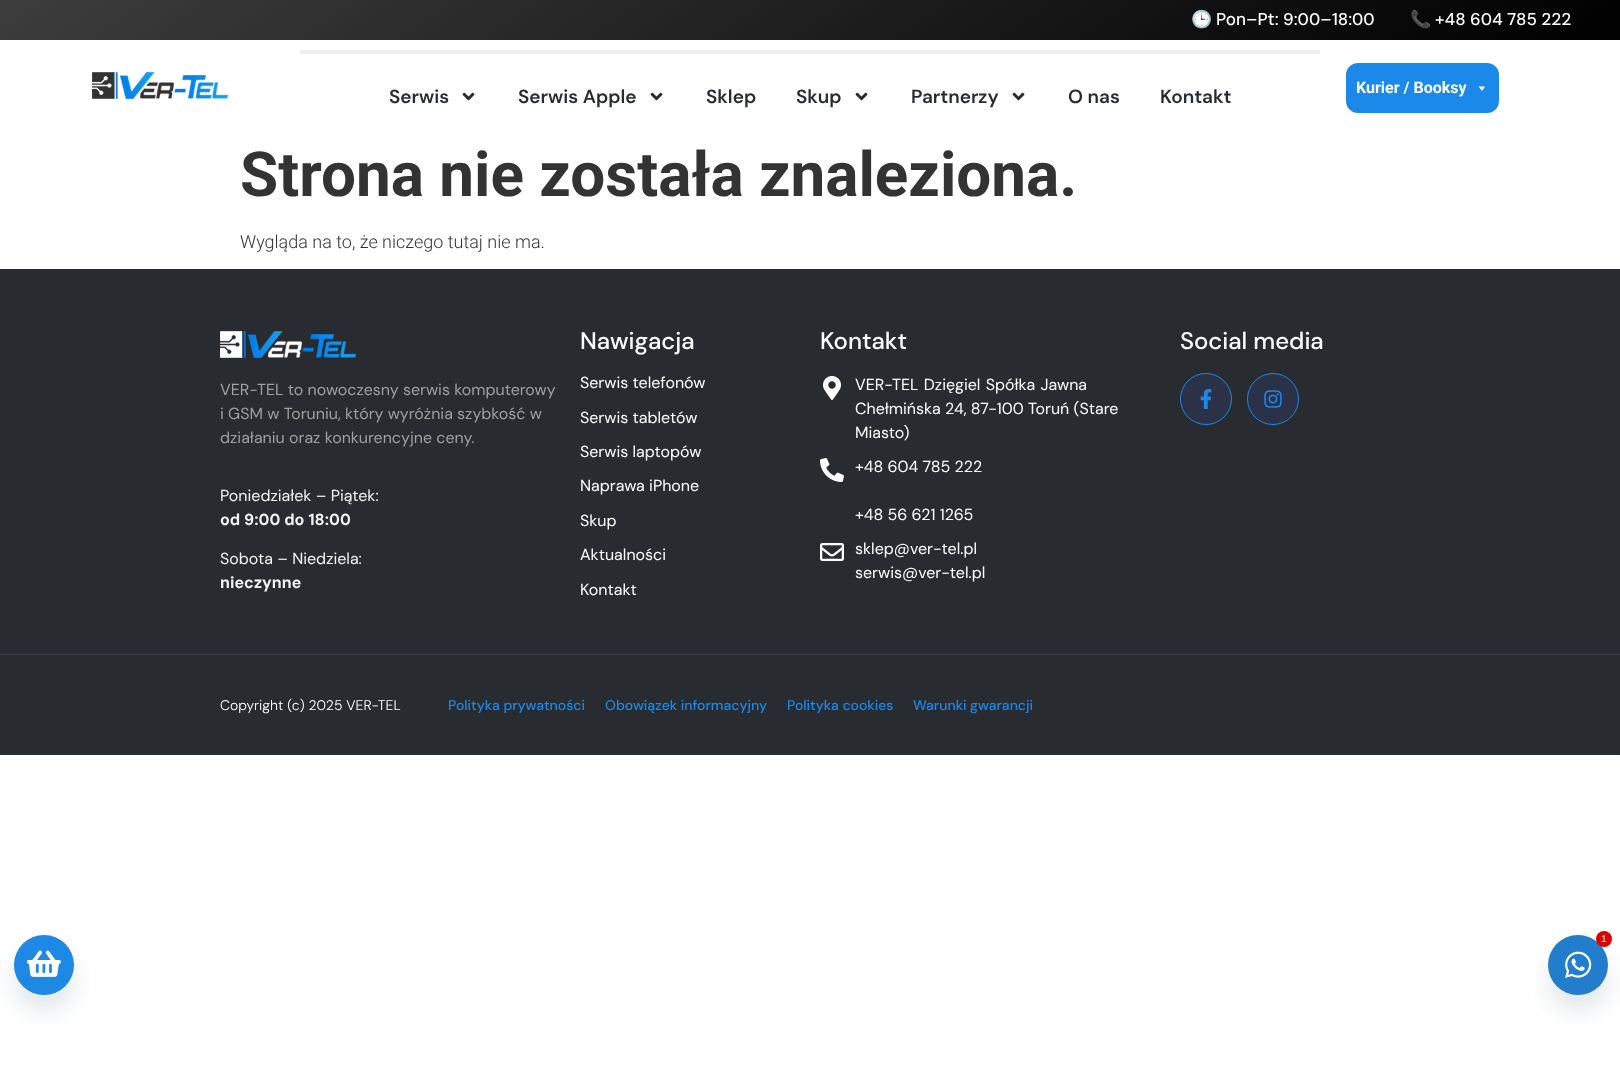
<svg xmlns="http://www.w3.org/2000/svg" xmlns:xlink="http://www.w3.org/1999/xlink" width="1620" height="1070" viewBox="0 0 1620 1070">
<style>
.cls-1{font:17px Noto Color Emoji;fill:#ffffff}
.cls-2{font:500 17px 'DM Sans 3';fill:#ffffff}
.cls-3{font:600 19px DM Sans;fill:#282c31}
.cls-4{font:bold 16px Roboto;fill:#ffffff}
.cls-5{font:bold 62px Roboto;fill:#333333}
.cls-6{font:300 18px Roboto;fill:#333333}
.cls-7{font:500 24px DM Sans;fill:#ffffff}
.cls-8{font:16px DM Sans;fill:#ffffff}
.cls-9{font:16px DM Sans;fill:#9f9f9f}
.cls-10{font:16px DM Sans;fill:#f3f3f3}
.cls-11{font:bold 16px DM Sans;fill:#f3f3f3}
.cls-12{font:300 14px DM Sans;fill:#ffffff}
.cls-13{font:500 14px 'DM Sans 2';fill:#1a89e9}
.cls-14{font:10px Liberation Sans;fill:#ffffff}
</style>
<defs>
<linearGradient id="g1" gradientUnits="userSpaceOnUse" x1="1073" y1="409" x2="547" y2="-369"><stop offset="0" stop-color="#000000"/><stop offset="1" stop-color="#3d3d3d"/></linearGradient>
</defs>
<rect width="100%" height="100%" fill="#ffffff"/>
<rect fill="url(#g1)" x="0" y="0" width="1620" height="40"/>
<image xlink:href="image0.png" x="92" y="72" width="136" height="27"/>
<rect fill="#eeeeee" x="300" y="50" width="1020" height="4"/>
<image xlink:href="image1.png" x="462" y="92" width="13" height="9"/>
<image xlink:href="image1.png" x="650" y="92" width="13" height="9"/>
<image xlink:href="image1.png" x="855" y="92" width="13" height="9"/>
<image xlink:href="image1.png" x="1012" y="92" width="13" height="9"/>
<rect fill="#1a89e9" x="1346" y="63" width="153" height="50" rx="12"/>
<path fill="#ffffff" d="M1485 86.5L1482 91L1478.5 86.5Z"/>
<rect fill="#282c31" x="0" y="269" width="1620" height="385"/>
<image xlink:href="image2.png" x="823" y="376" width="18" height="24"/>
<image xlink:href="image3.png" x="820" y="458" width="24" height="24"/>
<image xlink:href="image4.png" x="820" y="543" width="24" height="18"/>
<circle fill="#2b3146" stroke="#1a89e9" cx="1206" cy="399" r="25.5"/>
<image xlink:href="image5.png" x="1200" y="389" width="12" height="20"/>
<circle fill="#2b3146" stroke="#1a89e9" cx="1273" cy="399" r="25.5"/>
<image xlink:href="image6.png" x="1264" y="390" width="18" height="18"/>
<image xlink:href="image7.png" x="220" y="331" width="136" height="27"/>
<rect fill="#282c31" x="0" y="655" width="1620" height="100"/>
<rect fill="#373b41" x="0" y="654" width="1620" height="1"/>
<rect fill="#49687e" fill-opacity="0.16" filter="blur(12px)" x="14" y="951" width="60" height="60" rx="30"/>
<circle fill="#1e88e5" cx="44" cy="965" r="30"/>
<image xlink:href="image8.png" x="27" y="950" width="34" height="27"/>
<rect fill="#49687e" fill-opacity="0.16" filter="blur(12px)" x="1548" y="951" width="60" height="60" rx="30"/>
<circle fill="#227dcc" cx="1578" cy="965" r="30"/>
<image xlink:href="image9.png" x="1565" y="951" width="27" height="27"/>
<circle fill="#dd0000" cx="1604" cy="939" r="8"/>
<text class="cls-1" x="1191" y="25">🕒</text>
<text class="cls-2" x="1216" y="25">Pon–Pt: 9:00–18:00</text>
<text class="cls-1" x="1410" y="25">📞</text>
<text class="cls-2" x="1435" y="25">+48 604 785 222</text>
<text class="cls-3" x="389" y="103">Serwis</text>
<text class="cls-3" x="518" y="103">Serwis Apple</text>
<text class="cls-3" x="706" y="103">Sklep</text>
<text class="cls-3" x="796" y="103">Skup</text>
<text class="cls-3" x="911" y="103">Partnerzy</text>
<text class="cls-3" x="1068" y="103">O nas</text>
<text class="cls-3" x="1160" y="103">Kontakt</text>
<text class="cls-4" x="1356" y="93">Kurier / Booksy</text>
<text class="cls-5" x="240" y="196">Strona nie została znaleziona.</text>
<text class="cls-6" x="240" y="248">Wygląda na to, że niczego tutaj nie ma.</text>
<text class="cls-7" x="580" y="349">Nawigacja</text>
<text class="cls-8" x="580" y="388">Serwis telefonów</text>
<text class="cls-8" x="580" y="423">Serwis tabletów</text>
<text class="cls-8" x="580" y="457">Serwis laptopów</text>
<text class="cls-8" x="580" y="491">Naprawa iPhone</text>
<text class="cls-8" x="580" y="526">Skup</text>
<text class="cls-8" x="580" y="560">Aktualności</text>
<text class="cls-8" x="580" y="595">Kontakt</text>
<text class="cls-7" x="820" y="349">Kontakt</text>
<text class="cls-8"><tspan x="855" y="390" word-spacing="1">VER-TEL Dzięgiel Spółka Jawna</tspan><tspan x="855" y="414">Chełmińska 24, 87-100 Toruń (Stare</tspan><tspan x="855" y="438">Miasto)</tspan></text>
<text class="cls-8" x="855" y="472">+48 604 785 222</text>
<text class="cls-8" x="855" y="520">+48 56 621 1265</text>
<text class="cls-8"><tspan x="855" y="554">sklep@ver-tel.pl</tspan><tspan x="855" y="578">serwis@ver-tel.pl</tspan></text>
<text class="cls-7" x="1180" y="349">Social media</text>
<text class="cls-9"><tspan x="220" y="395">VER-TEL to nowoczesny serwis komputerowy</tspan><tspan x="220" y="419">i GSM w Toruniu, który wyróżnia szybkość w</tspan><tspan x="220" y="443">działaniu oraz konkurencyjne ceny.</tspan></text>
<text class="cls-10" x="220" y="501">Poniedziałek – Piątek:</text>
<text class="cls-11" x="220" y="525">od 9:00 do 18:00</text>
<text class="cls-10" x="220" y="564">Sobota – Niedziela:</text>
<text class="cls-11" x="220" y="588">nieczynne</text>
<text class="cls-12" x="220" y="710">Copyright (c) 2025 VER-TEL</text>
<text class="cls-13" x="448" y="710">Polityka prywatności</text>
<text class="cls-13" x="605" y="710">Obowiązek informacyjny</text>
<text class="cls-13" x="787" y="710">Polityka cookies</text>
<text class="cls-13" x="913" y="710">Warunki gwarancji</text>
<text class="cls-14" x="1601" y="942">1</text>
</svg>
